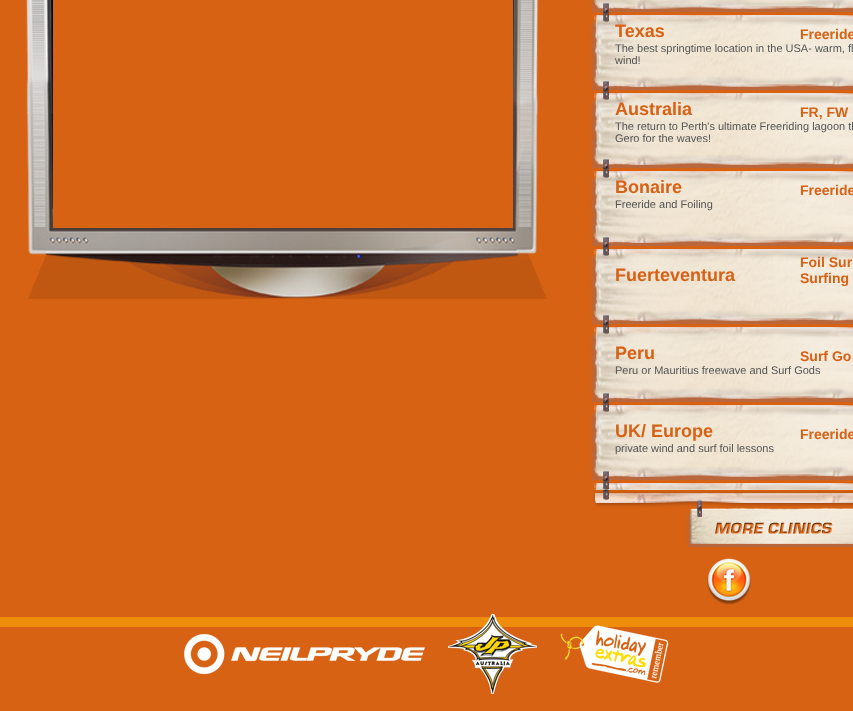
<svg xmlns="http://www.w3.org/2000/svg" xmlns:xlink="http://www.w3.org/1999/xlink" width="853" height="711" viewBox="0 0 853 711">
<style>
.cls-1{font:bold 18px Liberation Sans;fill:#d76114}
.cls-2{font:bold 14px Liberation Sans;fill:#d76114}
.cls-3{font:11px Liberation Sans;fill:#555555}
</style>
<rect width="100%" height="100%" fill="#d76213"/>
<image xlink:href="image0.png" x="21" y="0" width="32" height="228"/>
<image xlink:href="image1.png" x="513" y="0" width="32" height="228"/>
<image xlink:href="image2.png" x="27" y="228" width="520" height="71"/>
<image xlink:href="image3.png" x="590" y="0" width="263" height="490"/>
<image xlink:href="image4.png" x="593" y="490" width="260" height="57"/>
<image xlink:href="image5.png" x="707" y="558" width="44" height="47"/>
<rect fill="#ee8d0a" x="0" y="617" width="853" height="10"/>
<image xlink:href="image6.png" x="184" y="633" width="241" height="42"/>
<image xlink:href="image7.png" x="448" y="614" width="89" height="80"/>
<image xlink:href="image8.png" x="560" y="625" width="109" height="58"/>
<text class="cls-1" x="615" y="37">Texas</text>
<text class="cls-2" x="800" y="39">Freeride</text>
<text class="cls-3"><tspan x="615" y="52">The best springtime location in the USA- warm, fl</tspan><tspan x="615" y="64">wind!</tspan></text>
<text class="cls-1" x="615" y="115">Australia</text>
<text class="cls-2" x="800" y="117">FR, FW</text>
<text class="cls-3"><tspan x="615" y="130">The return to Perth's ultimate Freeriding lagoon th</tspan><tspan x="615" y="142">Gero for the waves!</tspan></text>
<text class="cls-1" x="615" y="193">Bonaire</text>
<text class="cls-2" x="800" y="195">Freeride</text>
<text class="cls-3" x="615" y="208">Freeride and Foiling</text>
<text class="cls-1" x="615" y="281">Fuerteventura</text>
<text class="cls-2"><tspan x="800" y="267">Foil Sur</tspan><tspan x="800" y="283">Surfing</tspan></text>
<text class="cls-1" x="615" y="359">Peru</text>
<text class="cls-2" x="800" y="361">Surf Go</text>
<text class="cls-3" x="615" y="374">Peru or Mauritius freewave and Surf Gods</text>
<text class="cls-1" x="615" y="437">UK/ Europe</text>
<text class="cls-2" x="800" y="439">Freeride</text>
<text class="cls-3" x="615" y="452">private wind and surf foil lessons</text>
</svg>
